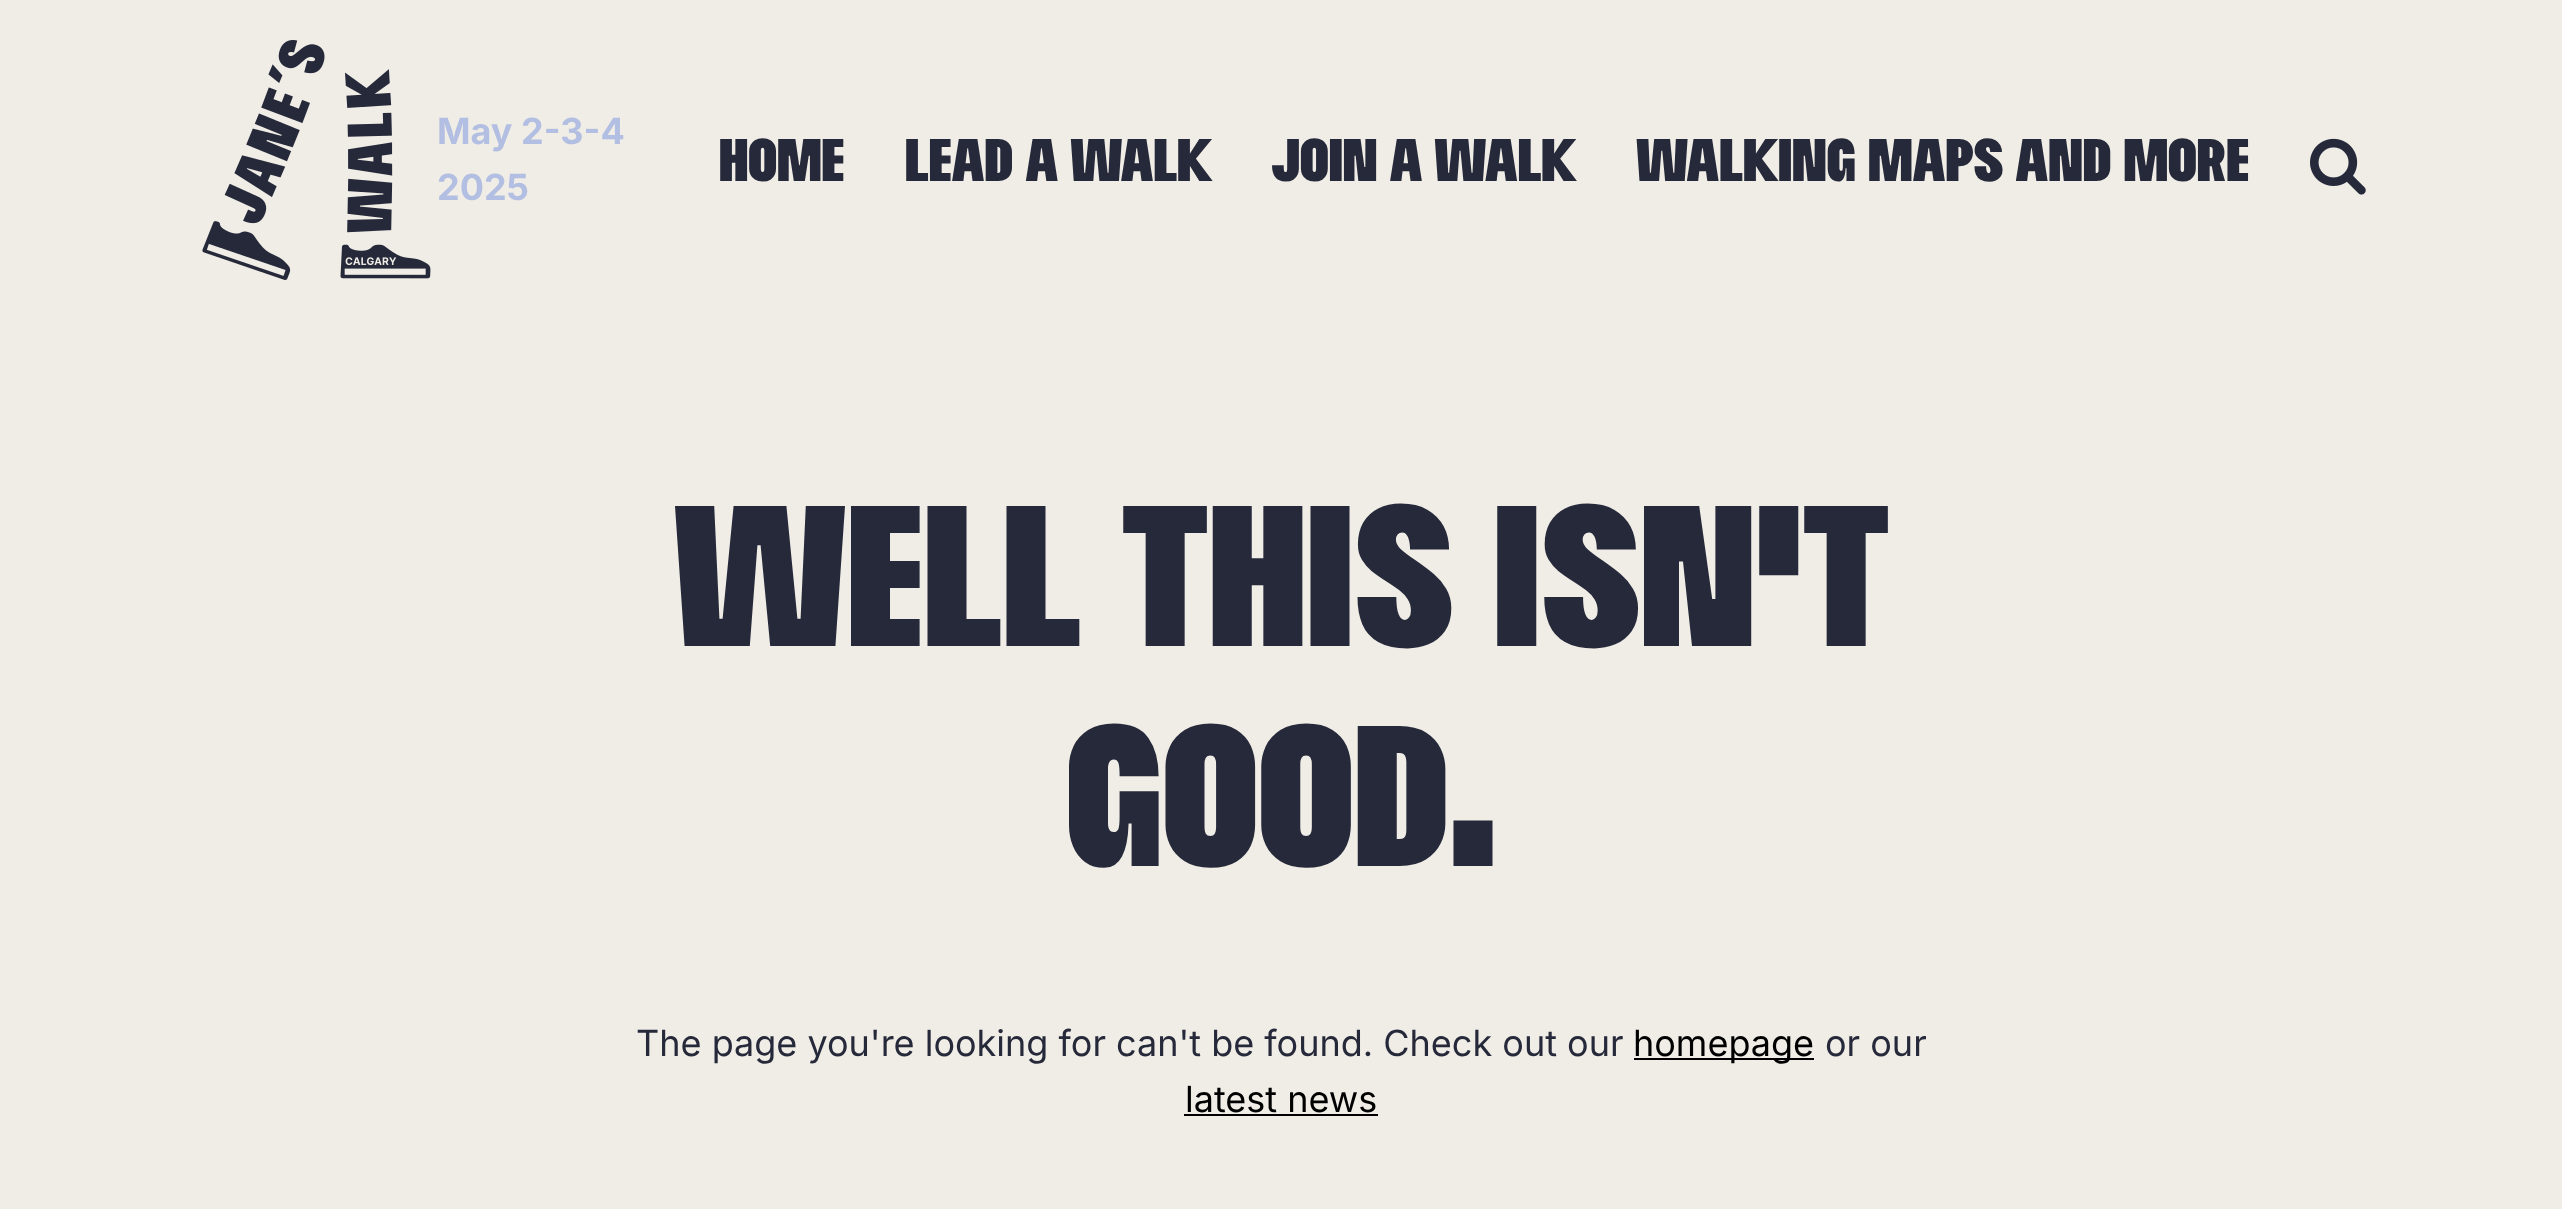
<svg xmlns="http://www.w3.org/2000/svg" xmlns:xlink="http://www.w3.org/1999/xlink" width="2562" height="1209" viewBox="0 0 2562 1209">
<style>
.cls-1{font:bold 36px Inter;fill:#b3bfe2}
.cls-2{font:60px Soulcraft;fill:#26293a}
.cls-3{font:200px Soulcraft;fill:#26293a}
.cls-4{font:36px Inter;fill:#26293a}
.cls-5{font:36px Inter;fill:#000000}
</style>
<rect width="100%" height="100%" fill="#f0ede6"/>
<image xlink:href="image0.png" x="202" y="40" width="229" height="240"/>
<image xlink:href="image1.png" x="2310" y="138" width="56" height="57"/>
<rect fill="#000000" x="1634" y="1058" width="180" height="2"/>
<rect fill="#000000" x="1184" y="1114" width="194" height="2"/>
<text class="cls-1"><tspan x="437" y="144">May 2-3-4</tspan><tspan x="437" y="200">2025</tspan></text>
<text class="cls-2" x="719" y="181">HOME</text>
<text class="cls-2" x="905" y="181">LEAD A WALK</text>
<text class="cls-2" x="1272" y="181">JOIN A WALK</text>
<text class="cls-2" x="1636" y="181">WALKING MAPS AND MORE</text>
<text class="cls-3" x="673" y="646">Well this isn't</text>
<text class="cls-3" x="1065" y="866">good.</text>
<text class="cls-4" x="636" y="1056">The page you're looking for can't be found. Check out our</text>
<text class="cls-5" x="1633" y="1056">homepage</text>
<text class="cls-4" x="1825" y="1056">or our</text>
<text class="cls-5" x="1185" y="1112">latest news</text>
</svg>
